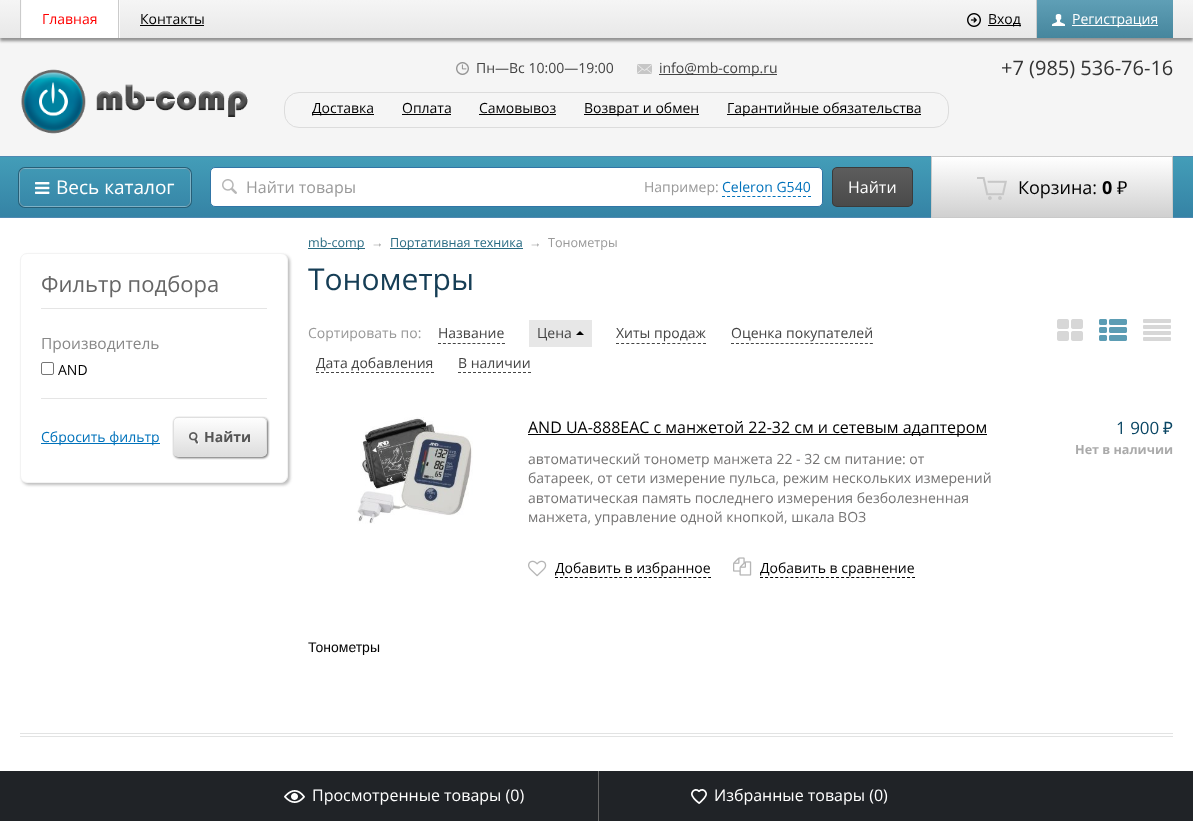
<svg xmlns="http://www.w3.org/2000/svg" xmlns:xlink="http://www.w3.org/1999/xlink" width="1193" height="821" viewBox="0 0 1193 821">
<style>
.cls-1{font:14px Open Sans;fill:#ff0000}
.cls-2{font:14px Open Sans;fill:#000000}
.cls-3{font:14px Open Sans;fill:#ffffff}
.cls-4{font:14px Open Sans;fill:#444444}
.cls-5{font:20px Open Sans;fill:#333333}
.cls-6{font:19px Open Sans;fill:#ffffff}
.cls-7{font:16px Open Sans;fill:#999999}
.cls-8{font:14px Open Sans;fill:#999999}
.cls-9{font:14px Open Sans;fill:#0072bb}
.cls-10{font:16px Open Sans;fill:#ffffff}
.cls-11{font:18px Open Sans;fill:#000000}
.cls-12{font:bold 18px Open Sans;fill:#000000}
.cls-13{font:18px Noto Sans;fill:#000000}
.cls-14{font:22px Open Sans;fill:#666666}
.cls-15{font:15.5px Open Sans;fill:#888888}
.cls-16{font:bold 14px Open Sans;fill:#555555}
.cls-17{font:12.6px Open Sans;fill:#296b83}
.cls-18{font:12.6px Liberation Sans;fill:#999999}
.cls-19{font:12.6px Open Sans;fill:#999999}
.cls-20{font:30px Open Sans;fill:#163e56}
.cls-21{font:16px Open Sans;fill:#000000}
.cls-22{font:14px Open Sans;fill:#757474}
.cls-23{font:17px Open Sans;fill:#0a4664}
.cls-24{font:17px Noto Sans;fill:#0a4664}
.cls-25{font:bold 12.6px Open Sans;fill:#aaaaaa}
.cls-26{font:14px Liberation Sans;fill:#000000}
</style>
<defs>
<linearGradient id="g1" gradientUnits="userSpaceOnUse" x1="597" y1="0" x2="597" y2="38"><stop offset="0" stop-color="#f5f5f5"/><stop offset="1" stop-color="#e8e8e8"/></linearGradient>
<linearGradient id="g2" gradientUnits="userSpaceOnUse" x1="1105" y1="0" x2="1105" y2="38"><stop offset="0" stop-color="#5f9fb6"/><stop offset="1" stop-color="#46869d"/></linearGradient>
<linearGradient id="g3" gradientUnits="userSpaceOnUse" x1="597" y1="157" x2="597" y2="217"><stop offset="0" stop-color="#439db8"/><stop offset="1" stop-color="#3583a5"/></linearGradient>
<clipPath id="clip1"><rect x="832" y="167" width="81" height="40" rx="5"/></clipPath>
<linearGradient id="g4" gradientUnits="userSpaceOnUse" x1="873" y1="168" x2="873" y2="206"><stop offset="0" stop-color="#5d5d5d"/><stop offset="1" stop-color="#4a4a4a"/></linearGradient>
<linearGradient id="g5" gradientUnits="userSpaceOnUse" x1="1052" y1="157" x2="1052" y2="217"><stop offset="0" stop-color="#ffffff"/><stop offset="1" stop-color="#d0d0d0"/></linearGradient>
<clipPath id="clip2"><rect x="173" y="417" width="94" height="40" rx="5"/></clipPath>
<linearGradient id="g6" gradientUnits="userSpaceOnUse" x1="220" y1="418" x2="220" y2="456"><stop offset="0" stop-color="#fefefe"/><stop offset="1" stop-color="#dddddd"/></linearGradient>
</defs>
<rect width="100%" height="100%" fill="#ffffff"/>
<rect fill="#f5f5f5" x="0" y="38" width="1193" height="118"/>
<rect fill="#666666" fill-opacity="0.7" filter="blur(1.5px)" x="0" y="3" width="1193" height="38"/>
<rect fill="url(#g1)" x="0" y="0" width="1193" height="38"/>
<rect fill="#cbcbcb" x="20" y="0" width="1" height="38"/>
<rect fill="#ffffff" x="22" y="0" width="96" height="38"/>
<rect fill="#fbfbfb" x="21" y="0" width="1" height="38"/>
<rect fill="#cbcbcb" x="118" y="0" width="1" height="38"/>
<rect fill="#fbfbfb" x="119" y="0" width="1" height="38"/>
<rect fill="#000000" x="140" y="25" width="64" height="1"/>
<image xlink:href="image0.png" x="967" y="13" width="14" height="14"/>
<rect fill="#000000" x="988" y="25" width="33" height="1"/>
<rect fill="#cbcbcb" x="1036" y="0" width="1" height="38"/>
<rect fill="url(#g2)" x="1037" y="0" width="136" height="38"/>
<image xlink:href="image1.png" x="1052" y="14" width="13" height="12"/>
<rect fill="#ffffff" x="1072" y="25" width="86" height="1"/>
<image xlink:href="image2.png" x="21" y="69" width="227" height="65"/>
<image xlink:href="image3.png" x="456" y="62" width="13" height="13"/>
<image xlink:href="image4.png" x="637" y="64" width="15" height="10"/>
<rect fill="#444444" x="659" y="74" width="118" height="1"/>
<rect fill="none" stroke="#dcdcdc" x="284.5" y="92.5" width="664" height="35" rx="14.5"/>
<rect fill="#000000" x="312" y="114" width="62" height="1"/>
<rect fill="#000000" x="402" y="114" width="49" height="1"/>
<rect fill="#000000" x="479" y="114" width="77" height="1"/>
<rect fill="#000000" x="584" y="114" width="115" height="1"/>
<rect fill="#000000" x="727" y="114" width="194" height="1"/>
<rect fill="url(#g3)" x="0" y="157" width="1193" height="60"/>
<rect fill="#4f89b2" x="0" y="156" width="1193" height="1"/>
<rect fill="#4f89b2" x="0" y="217" width="1193" height="1"/>
<rect fill="none" stroke="#275f77" stroke-width="2" x="19" y="168" width="172" height="39" rx="6"/>
<rect fill="none" stroke="#7eb2c6" x="19.5" y="168.5" width="171" height="38" rx="5.5"/>
<image xlink:href="image5.png" x="35" y="182" width="15" height="12"/>
<rect fill="#ffffff" stroke="#3175a6" x="210.5" y="167.5" width="612" height="39" rx="4.5"/>
<image xlink:href="image6.png" x="222" y="179" width="15" height="15"/>
<path fill="none" stroke="#0072bb" stroke-dasharray="3 2.06" d="M722 196.5H811"/>
<g clip-path="url(#clip1)">
<rect fill="url(#g4)" x="832" y="168" width="81" height="38"/>
</g>
<rect fill="none" stroke="#3b3b3b" x="832.5" y="167.5" width="80" height="39" rx="4.5"/>
<rect fill="url(#g5)" x="932" y="157" width="240" height="60"/>
<rect fill="none" stroke="#c9c9c9" x="931.5" y="156.5" width="241" height="61"/>
<image xlink:href="image7.png" x="977" y="177" width="30" height="23"/>
<rect fill="#bdbdbd" filter="blur(1.5px)" x="22" y="255" width="268" height="230" rx="7"/>
<rect fill="#ffffff" stroke="#f3f3f3" x="20.5" y="253.5" width="267" height="229" rx="6.5"/>
<rect fill="#e5e5e5" x="41" y="308" width="226" height="1"/>
<rect fill="#e5e5e5" x="41" y="398" width="226" height="1"/>
<rect fill="none" stroke="#767676" x="41.5" y="362.5" width="12" height="12" rx="1.5"/>
<rect fill="#0072bb" x="41" y="443" width="119" height="1"/>
<rect fill="#666666" filter="blur(1px)" x="174" y="418" width="94" height="40" rx="5"/>
<g clip-path="url(#clip2)">
<rect fill="url(#g6)" x="173" y="418" width="94" height="38"/>
</g>
<rect fill="none" stroke="#dfdfdf" x="173.5" y="417.5" width="93" height="39" rx="4.5"/>
<image xlink:href="image8.png" x="189" y="432" width="10" height="13"/>
<rect fill="#296b83" x="308" y="248" width="57" height="1"/>
<rect fill="#296b83" x="390" y="248" width="133" height="1"/>
<path fill="none" stroke="#444444" stroke-dasharray="3 1.92" d="M438 343.5H505"/>
<rect fill="#e7e7e7" x="529" y="320" width="63" height="27"/>
<path fill="#000000" d="M584 335H576L580 331Z"/>
<path fill="none" stroke="#444444" stroke-dasharray="3 2.12" d="M616 343.5H706"/>
<path fill="none" stroke="#444444" stroke-dasharray="3 1.96" d="M731 343.5H873"/>
<path fill="none" stroke="#444444" stroke-dasharray="3 2" d="M316 372.5H434"/>
<path fill="none" stroke="#444444" stroke-dasharray="3 2" d="M458 372.5H531"/>
<image xlink:href="image9.png" x="1057" y="319" width="26" height="22"/>
<image xlink:href="image10.png" x="1099" y="319" width="28" height="22"/>
<image xlink:href="image11.png" x="1143" y="319" width="28" height="22"/>
<image xlink:href="image12.png" x="357" y="417" width="116" height="107"/>
<rect fill="#000000" x="528" y="434" width="459" height="1"/>
<image xlink:href="image13.png" x="528" y="560" width="19" height="17"/>
<path fill="none" stroke="#000000" stroke-dasharray="3 1.94" d="M555 577.5H711"/>
<image xlink:href="image14.png" x="733" y="557" width="19" height="19"/>
<path fill="none" stroke="#000000" stroke-dasharray="3 2.07" d="M760 577.5H915"/>
<rect fill="#e2e3e3" x="20" y="733" width="1153" height="1"/>
<rect fill="#e2e3e3" x="20" y="736" width="1153" height="1"/>
<rect fill="#202327" x="0" y="771" width="1193" height="50"/>
<image xlink:href="image15.png" x="284" y="790" width="21" height="13"/>
<rect fill="#666666" x="598" y="771" width="1" height="50"/>
<image xlink:href="image16.png" x="691" y="789" width="16" height="15"/>
<text class="cls-1" x="42" y="24">Главная</text>
<text class="cls-2" x="140" y="24">Контакты</text>
<text class="cls-2" x="988" y="24">Вход</text>
<text class="cls-3" x="1072" y="24">Регистрация</text>
<text class="cls-4" x="476" y="73">Пн—Вс 10:00—19:00</text>
<text class="cls-4" x="659" y="73">info@mb-comp.ru</text>
<text class="cls-2" x="312" y="113">Доставка</text>
<text class="cls-2" x="402" y="113">Оплата</text>
<text class="cls-2" x="479" y="113">Самовывоз</text>
<text class="cls-2" x="584" y="113">Возврат и обмен</text>
<text class="cls-2" x="727" y="113">Гарантийные обязательства</text>
<text class="cls-5" x="1001" y="75">+7 (985) 536-76-16</text>
<text class="cls-6" x="56" y="194">Весь каталог</text>
<text class="cls-7" x="246" y="193">Найти товары</text>
<text class="cls-8" x="644" y="192">Например:</text>
<text class="cls-9" x="722" y="192">Celeron G540</text>
<text class="cls-10" x="848" y="193">Найти</text>
<text class="cls-11" x="1018" y="194">Корзина:</text>
<text class="cls-12" x="1102" y="194">0</text>
<text class="cls-13" x="1117" y="194">₽</text>
<text class="cls-14" x="41" y="292">Фильтр подбора</text>
<text class="cls-15" x="41" y="349">Производитель</text>
<text class="cls-2" x="58" y="375">AND</text>
<text class="cls-9" x="41" y="442">Сбросить фильтр</text>
<text class="cls-16" x="204" y="442">Найти</text>
<text class="cls-17" x="308" y="247">mb-comp</text>
<text class="cls-18" x="371" y="247">→</text>
<text class="cls-17" x="390" y="247">Портативная техника</text>
<text class="cls-18" x="529" y="247">→</text>
<text class="cls-19" x="548" y="247">Тонометры</text>
<text class="cls-20" x="308" y="290">Тонометры</text>
<text class="cls-8" x="308" y="338">Сортировать по:</text>
<text class="cls-4" x="438" y="338">Название</text>
<text class="cls-4" x="537" y="338">Цена</text>
<text class="cls-4" x="616" y="338">Хиты продаж</text>
<text class="cls-4" x="731" y="338">Оценка покупателей</text>
<text class="cls-4" x="316" y="368">Дата добавления</text>
<text class="cls-4" x="458" y="368">В наличии</text>
<text class="cls-21" x="528" y="433">AND UA-888EAC c манжетой 22-32 см и сетевым адаптером</text>
<text class="cls-22"><tspan x="528" y="464">автоматический тонометр манжета 22 - 32 см питание: от</tspan><tspan x="528" y="483">батареек, от сети измерение пульса, режим нескольких измерений</tspan><tspan x="528" y="503">автоматическая память последнего измерения безболезненная</tspan><tspan x="528" y="522">манжета, управление одной кнопкой, шкала ВОЗ</tspan></text>
<text class="cls-2" x="555" y="573">Добавить в избранное</text>
<text class="cls-2" x="760" y="573">Добавить в сравнение</text>
<text class="cls-23" x="1116" y="434">1 900</text>
<text class="cls-24" x="1163" y="434">₽</text>
<text class="cls-25" x="1075" y="454">Нет в наличии</text>
<text class="cls-26" x="308" y="652">Тонометры</text>
<text class="cls-10" x="312" y="801">Просмотренные товары (0)</text>
<text class="cls-10" x="714" y="801">Избранные товары (0)</text>
</svg>
